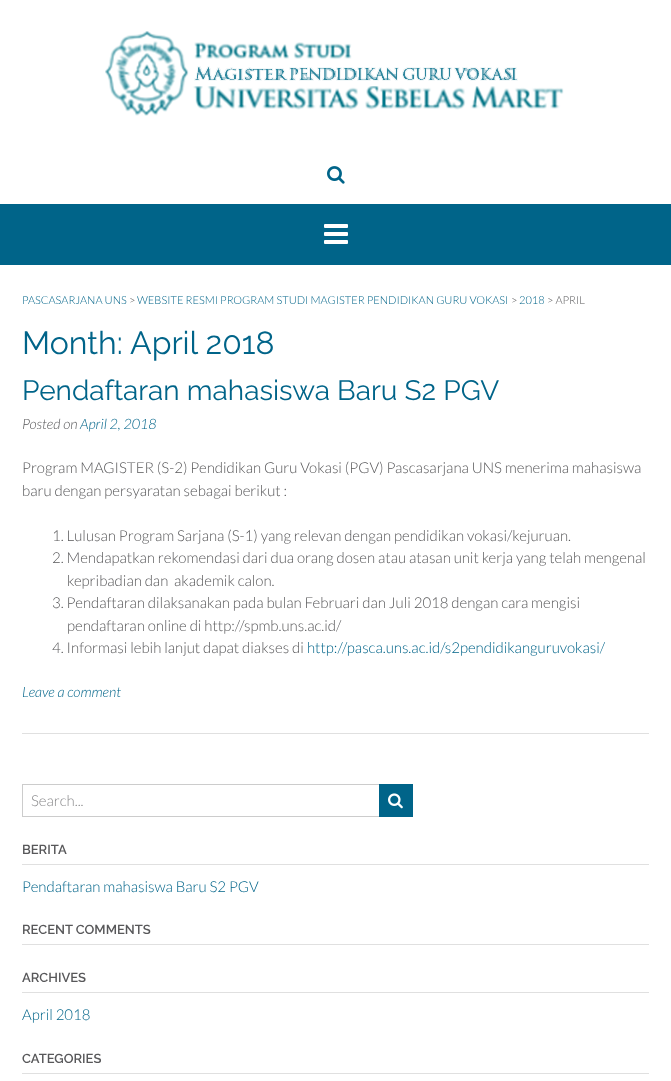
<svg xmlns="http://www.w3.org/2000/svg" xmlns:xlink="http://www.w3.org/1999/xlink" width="671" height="1081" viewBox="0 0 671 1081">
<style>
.cls-1{font:300 11px Lato;fill:#006489}
.cls-2{font:300 11px Lato;fill:#58585a}
.cls-3{font:32px Raleway;fill:#006489}
.cls-4{font:28px Raleway;fill:#006489}
.cls-5{font:italic 300 14.25px Lato;fill:#58585a}
.cls-6{font:italic 300 14.25px Lato;fill:#006489}
.cls-7{font:300 15px Lato;fill:#58585a}
.cls-8{font:300 15px Lato;fill:#006489}
.cls-9{font:300 15px Lato;fill:#8a8a8c}
.cls-10{font:600 13px Raleway;fill:#58585a}
</style>
<rect width="100%" height="100%" fill="#ffffff"/>
<image xlink:href="image0.png" x="105" y="31" width="459" height="85"/>
<image xlink:href="image1.png" x="327" y="166" width="18" height="18"/>
<rect fill="#006489" x="0" y="204" width="671" height="61"/>
<image xlink:href="image2.png" x="324" y="224" width="24" height="20"/>
<rect fill="#e0e0e0" x="22" y="733" width="627" height="1"/>
<rect fill="none" stroke="#cccccc" x="22.5" y="784.5" width="359" height="32"/>
<rect fill="#006489" x="379" y="784" width="34" height="33"/>
<image xlink:href="image3.png" x="388" y="793" width="15" height="16"/>
<rect fill="#e0e0e0" x="22" y="864" width="627" height="1"/>
<rect fill="#e0e0e0" x="22" y="944" width="627" height="1"/>
<rect fill="#e0e0e0" x="22" y="992" width="627" height="1"/>
<rect fill="#e0e0e0" x="22" y="1073" width="627" height="1"/>
<text class="cls-1" x="22" y="304">PASCASARJANA UNS</text>
<text class="cls-2" x="129" y="304">&gt;</text>
<text class="cls-1" x="137" y="304">WEBSITE RESMI PROGRAM STUDI MAGISTER PENDIDIKAN GURU VOKASI</text>
<text class="cls-2" x="511" y="304">&gt;</text>
<text class="cls-1" x="519" y="304">2018</text>
<text class="cls-2" x="547" y="304">&gt; APRIL</text>
<text class="cls-3" x="22" y="354">Month:</text>
<text class="cls-3" x="130" y="354">April 2018</text>
<text class="cls-4" x="22" y="400">Pendaftaran mahasiswa Baru S2 PGV</text>
<text class="cls-5" x="22" y="429">Posted on</text>
<text class="cls-6" x="80" y="429">April 2, 2018</text>
<text class="cls-7"><tspan x="22" y="473">Program MAGISTER (S-2) Pendidikan Guru Vokasi (PGV) Pascasarjana UNS menerima mahasiswa</tspan><tspan x="22" y="496">baru dengan persyaratan sebagai berikut :</tspan></text>
<text class="cls-7"><tspan x="52" y="541">1. Lulusan Program Sarjana (S-1) yang relevan dengan pendidikan vokasi/kejuruan.</tspan><tspan x="52" y="563">2. Mendapatkan rekomendasi dari dua orang dosen atau atasan unit kerja yang telah mengenal</tspan></text>
<text class="cls-7" xml:space="preserve" x="67" y="586">kepribadian dan  akademik calon.</text>
<text class="cls-7" x="52" y="608">3. Pendaftaran dilaksanakan pada bulan Februari dan Juli 2018 dengan cara mengisi</text>
<text class="cls-7" x="67" y="631">pendaftaran online di http://spmb.uns.ac.id/</text>
<text class="cls-7" x="52" y="653">4. Informasi lebih lanjut dapat diakses di</text>
<text class="cls-8" x="307" y="653">http://pasca.uns.ac.id/s2pendidikanguruvokasi/</text>
<text class="cls-6" x="22" y="697">Leave a comment</text>
<text class="cls-9" x="31" y="806">Search...</text>
<text class="cls-10" x="22" y="854">BERITA</text>
<text class="cls-8" x="22" y="892">Pendaftaran mahasiswa Baru S2 PGV</text>
<text class="cls-10" x="22" y="934">RECENT COMMENTS</text>
<text class="cls-10" x="22" y="982">ARCHIVES</text>
<text class="cls-8" x="22" y="1020">April 2018</text>
<text class="cls-10" x="22" y="1063">CATEGORIES</text>
</svg>
